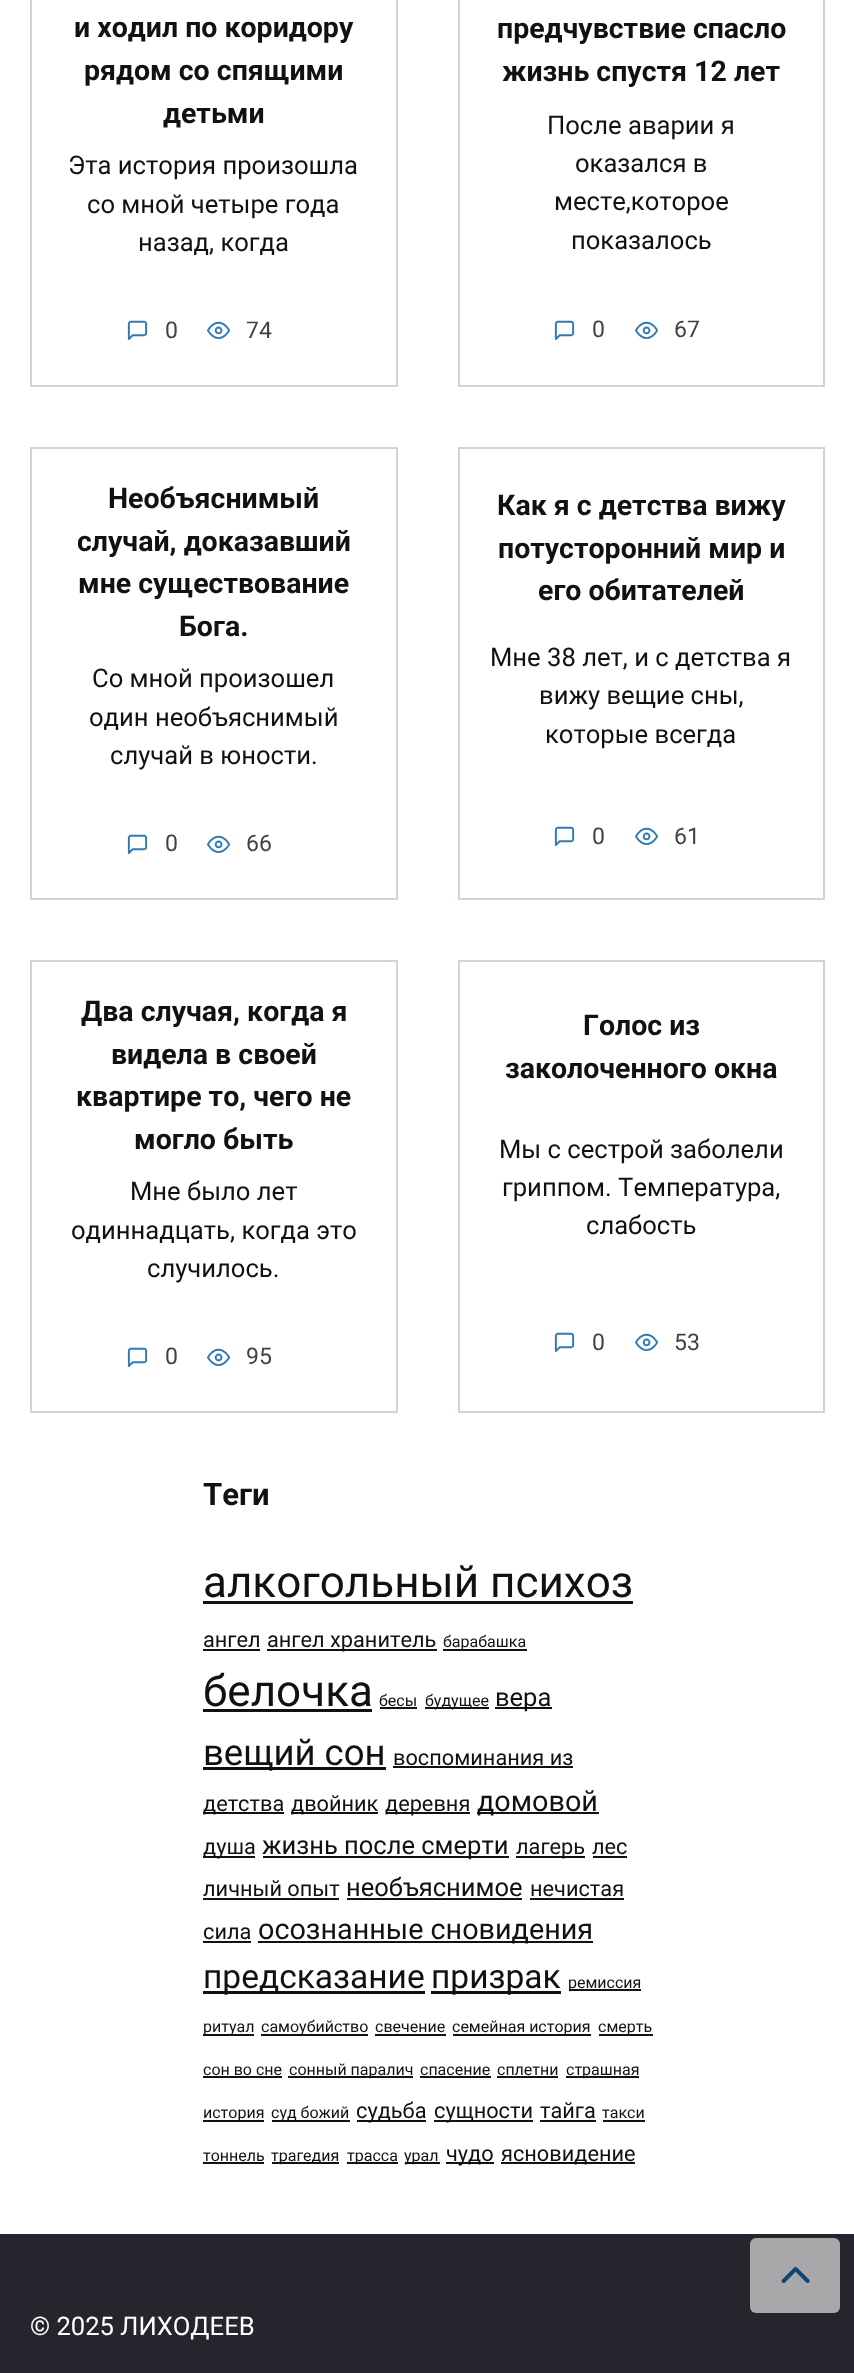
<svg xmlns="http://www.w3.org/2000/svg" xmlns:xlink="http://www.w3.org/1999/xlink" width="854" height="2373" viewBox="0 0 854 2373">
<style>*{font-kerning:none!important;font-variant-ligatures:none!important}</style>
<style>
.cls-1{font:bold 28.5px Roboto;fill:#111111}
.cls-2{font:25.6px Roboto;fill:#111111}
.cls-3{font:23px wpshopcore;fill:#337ab5}
.cls-4{font:23px Roboto;fill:#414141}
.cls-5{font:bold 31px Roboto;fill:#111111}
.cls-6{font:44px Roboto;fill:#111111}
.cls-7{font:21.75px Roboto;fill:#111111}
.cls-8{font:16px Roboto;fill:#111111}
.cls-9{font:25.5px Roboto;fill:#111111}
.cls-10{font:36.5px Roboto;fill:#111111}
.cls-11{font:28.75px Roboto;fill:#111111}
.cls-12{font:33.5px Roboto;fill:#111111}
.cls-13{font:48px wpshopcore;fill:#0f4474}
.cls-14{font:25.6px Roboto;fill:#ffffff}
</style>
<rect width="100%" height="100%" fill="#ffffff"/>
<rect fill="none" stroke="#ced4da" stroke-width="2" x="31" y="-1" width="366" height="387"/>
<rect fill="none" stroke="#ced4da" stroke-width="2" x="459" y="-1" width="365" height="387"/>
<rect fill="none" stroke="#ced4da" stroke-width="2" x="31" y="448" width="366" height="451"/>
<rect fill="none" stroke="#ced4da" stroke-width="2" x="459" y="448" width="365" height="451"/>
<rect fill="none" stroke="#ced4da" stroke-width="2" x="31" y="961" width="366" height="451"/>
<rect fill="none" stroke="#ced4da" stroke-width="2" x="459" y="961" width="365" height="451"/>
<rect fill="#111111" x="203" y="1601" width="430" height="3"/>
<rect fill="#111111" x="203" y="1649" width="57" height="2"/>
<rect fill="#111111" x="267" y="1649" width="170" height="2"/>
<rect fill="#111111" x="443" y="1649" width="84" height="2"/>
<rect fill="#111111" x="203" y="1709" width="169" height="3"/>
<rect fill="#111111" x="380" y="1707" width="37" height="2"/>
<rect fill="#111111" x="425" y="1707" width="64" height="2"/>
<rect fill="#111111" x="495" y="1707" width="57" height="2"/>
<rect fill="#111111" x="203" y="1767" width="183" height="3"/>
<rect fill="#111111" x="393" y="1766" width="180" height="2"/>
<rect fill="#111111" x="203" y="1812" width="81" height="2"/>
<rect fill="#111111" x="291" y="1812" width="87" height="2"/>
<rect fill="#111111" x="386" y="1812" width="84" height="2"/>
<rect fill="#111111" x="477" y="1812" width="122" height="2"/>
<rect fill="#111111" x="203" y="1856" width="52" height="2"/>
<rect fill="#111111" x="263" y="1856" width="246" height="2"/>
<rect fill="#111111" x="516" y="1856" width="69" height="2"/>
<rect fill="#111111" x="593" y="1856" width="34" height="2"/>
<rect fill="#111111" x="203" y="1898" width="136" height="2"/>
<rect fill="#111111" x="347" y="1898" width="175" height="2"/>
<rect fill="#111111" x="530" y="1898" width="94" height="2"/>
<rect fill="#111111" x="203" y="1941" width="48" height="2"/>
<rect fill="#111111" x="258" y="1941" width="335" height="2"/>
<rect fill="#111111" x="203" y="1991" width="222" height="3"/>
<rect fill="#111111" x="431" y="1991" width="130" height="3"/>
<rect fill="#111111" x="569" y="1989" width="72" height="2"/>
<rect fill="#111111" x="203" y="2034" width="51" height="2"/>
<rect fill="#111111" x="261" y="2034" width="107" height="2"/>
<rect fill="#111111" x="375" y="2034" width="71" height="2"/>
<rect fill="#111111" x="453" y="2034" width="138" height="2"/>
<rect fill="#111111" x="599" y="2034" width="54" height="2"/>
<rect fill="#111111" x="203" y="2076" width="79" height="2"/>
<rect fill="#111111" x="288" y="2076" width="125" height="2"/>
<rect fill="#111111" x="420" y="2076" width="71" height="2"/>
<rect fill="#111111" x="497" y="2076" width="61" height="2"/>
<rect fill="#111111" x="566" y="2076" width="73" height="2"/>
<rect fill="#111111" x="203" y="2120" width="61" height="2"/>
<rect fill="#111111" x="272" y="2120" width="78" height="2"/>
<rect fill="#111111" x="357" y="2120" width="69" height="2"/>
<rect fill="#111111" x="434" y="2120" width="99" height="2"/>
<rect fill="#111111" x="540" y="2120" width="56" height="2"/>
<rect fill="#111111" x="603" y="2120" width="42" height="2"/>
<rect fill="#111111" x="203" y="2162" width="61" height="2"/>
<rect fill="#111111" x="272" y="2162" width="67" height="2"/>
<rect fill="#111111" x="347" y="2162" width="51" height="2"/>
<rect fill="#111111" x="405" y="2162" width="35" height="2"/>
<rect fill="#111111" x="446" y="2162" width="48" height="2"/>
<rect fill="#111111" x="501" y="2162" width="134" height="2"/>
<rect fill="#26252d" x="0" y="2234" width="854" height="139"/>
<rect fill="#a8a8ab" x="750" y="2238" width="90" height="75" rx="6"/>
<text class="cls-1" x="74" y="37">и ходил по коридору</text>
<text class="cls-1" x="84" y="80">рядом со спящими</text>
<text class="cls-1" x="163" y="123">детьми</text>
<text class="cls-2" x="68" y="174">Эта история произошла</text>
<text class="cls-2" x="87" y="213">со мной четыре года</text>
<text class="cls-2" x="138" y="251">назад, когда</text>
<text class="cls-3" x="126" y="340">💬</text>
<text class="cls-4" x="165" y="338">0</text>
<text class="cls-3" x="207" y="340">👀</text>
<text class="cls-4" x="246" y="338">74</text>
<text class="cls-1" x="497" y="38">предчувствие спасло</text>
<text class="cls-1" x="502" y="81">жизнь спустя 12 лет</text>
<text class="cls-2" x="547" y="134">После аварии я</text>
<text class="cls-2" x="575" y="172">оказался в</text>
<text class="cls-2" x="554" y="210">месте,которое</text>
<text class="cls-2" x="571" y="249">показалось</text>
<text class="cls-3" x="553" y="340">💬</text>
<text class="cls-4" x="592" y="337">0</text>
<text class="cls-3" x="635" y="340">👀</text>
<text class="cls-4" x="674" y="337">67</text>
<text class="cls-1" x="108" y="508">Необъяснимый</text>
<text class="cls-1" x="77" y="551">случай, доказавший</text>
<text class="cls-1" x="78" y="593">мне существование</text>
<text class="cls-1" x="179" y="636">Бога.</text>
<text class="cls-2" x="92" y="687">Со мной произошел</text>
<text class="cls-2" x="89" y="726">один необъяснимый</text>
<text class="cls-2" x="110" y="764">случай в юности.</text>
<text class="cls-3" x="126" y="854">💬</text>
<text class="cls-4" x="165" y="851">0</text>
<text class="cls-3" x="207" y="854">👀</text>
<text class="cls-4" x="246" y="851">66</text>
<text class="cls-1" x="497" y="515">Как я с детства вижу</text>
<text class="cls-1" x="498" y="558">потусторонний мир и</text>
<text class="cls-1" x="538" y="600">его обитателей</text>
<text class="cls-2" x="490" y="666">Мне 38 лет, и с детства я</text>
<text class="cls-2" x="539" y="704">вижу вещие сны,</text>
<text class="cls-2" x="545" y="743">которые всегда</text>
<text class="cls-3" x="553" y="846">💬</text>
<text class="cls-4" x="592" y="844">0</text>
<text class="cls-3" x="635" y="846">👀</text>
<text class="cls-4" x="674" y="844">61</text>
<text class="cls-1" x="81" y="1021">Два случая, когда я</text>
<text class="cls-1" x="111" y="1064">видела в своей</text>
<text class="cls-1" x="76" y="1106">квартире то, чего не</text>
<text class="cls-1" x="134" y="1149">могло быть</text>
<text class="cls-2" x="130" y="1200">Мне было лет</text>
<text class="cls-2" x="71" y="1239">одиннадцать, когда это</text>
<text class="cls-2" x="147" y="1277">случилось.</text>
<text class="cls-3" x="126" y="1367">💬</text>
<text class="cls-4" x="165" y="1364">0</text>
<text class="cls-3" x="207" y="1367">👀</text>
<text class="cls-4" x="246" y="1364">95</text>
<text class="cls-1" x="583" y="1035">Голос из</text>
<text class="cls-1" x="505" y="1078">заколоченного окна</text>
<text class="cls-2" x="499" y="1158">Мы с сестрой заболели</text>
<text class="cls-2" x="502" y="1196">гриппом. Температура,</text>
<text class="cls-2" x="586" y="1234">слабость</text>
<text class="cls-3" x="553" y="1352">💬</text>
<text class="cls-4" x="592" y="1350">0</text>
<text class="cls-3" x="635" y="1352">👀</text>
<text class="cls-4" x="674" y="1350">53</text>
<text class="cls-5" x="203" y="1505">Теги</text>
<text class="cls-6" x="203" y="1597">алкогольный психоз</text>
<text class="cls-7" x="203" y="1647">ангел</text>
<text class="cls-7" x="267" y="1647">ангел хранитель</text>
<text class="cls-8" x="443" y="1647">барабашка</text>
<text class="cls-6" x="203" y="1706">белочка</text>
<text class="cls-8" x="379" y="1706">бесы</text>
<text class="cls-8" x="425" y="1706">будущее</text>
<text class="cls-9" x="495" y="1706">вера</text>
<text class="cls-10" x="203" y="1765">вещий сон</text>
<text class="cls-7" x="393" y="1765">воспоминания из</text>
<text class="cls-7" x="203" y="1811">детства</text>
<text class="cls-7" x="291" y="1811">двойник</text>
<text class="cls-7" x="385" y="1811">деревня</text>
<text class="cls-11" x="477" y="1811">домовой</text>
<text class="cls-7" x="203" y="1854">душа</text>
<text class="cls-9" x="262" y="1854">жизнь после смерти</text>
<text class="cls-7" x="516" y="1854">лагерь</text>
<text class="cls-7" x="592" y="1854">лес</text>
<text class="cls-7" x="203" y="1896">личный опыт</text>
<text class="cls-9" x="346" y="1896">необъяснимое</text>
<text class="cls-7" x="530" y="1896">нечистая</text>
<text class="cls-7" x="203" y="1939">сила</text>
<text class="cls-11" x="258" y="1939">осознанные сновидения</text>
<text class="cls-12" x="203" y="1988">предсказание</text>
<text class="cls-12" x="431" y="1988">призрак</text>
<text class="cls-8" x="568" y="1988">ремиссия</text>
<text class="cls-8" x="203" y="2032">ритуал</text>
<text class="cls-8" x="261" y="2032">самоубийство</text>
<text class="cls-8" x="375" y="2032">свечение</text>
<text class="cls-8" x="452" y="2032">семейная история</text>
<text class="cls-8" x="598" y="2032">смерть</text>
<text class="cls-8" x="203" y="2075">сон во сне</text>
<text class="cls-8" x="289" y="2075">сонный паралич</text>
<text class="cls-8" x="420" y="2075">спасение</text>
<text class="cls-8" x="497" y="2075">сплетни</text>
<text class="cls-8" x="566" y="2075">страшная</text>
<text class="cls-8" x="203" y="2118">история</text>
<text class="cls-8" x="271" y="2118">суд божий</text>
<text class="cls-7" x="356" y="2118">судьба</text>
<text class="cls-7" x="434" y="2118">сущности</text>
<text class="cls-7" x="540" y="2118">тайга</text>
<text class="cls-8" x="602" y="2118">такси</text>
<text class="cls-8" x="203" y="2161">тоннель</text>
<text class="cls-8" x="271" y="2161">трагедия</text>
<text class="cls-8" x="347" y="2161">трасса</text>
<text class="cls-8" x="404" y="2161">урал</text>
<text class="cls-7" x="446" y="2161">чудо</text>
<text class="cls-7" x="501" y="2161">ясновидение</text>
<text class="cls-13" x="771" y="2295">︿</text>
<text class="cls-14" x="30" y="2335">© 2025 ЛИХОДЕЕВ</text>
</svg>
